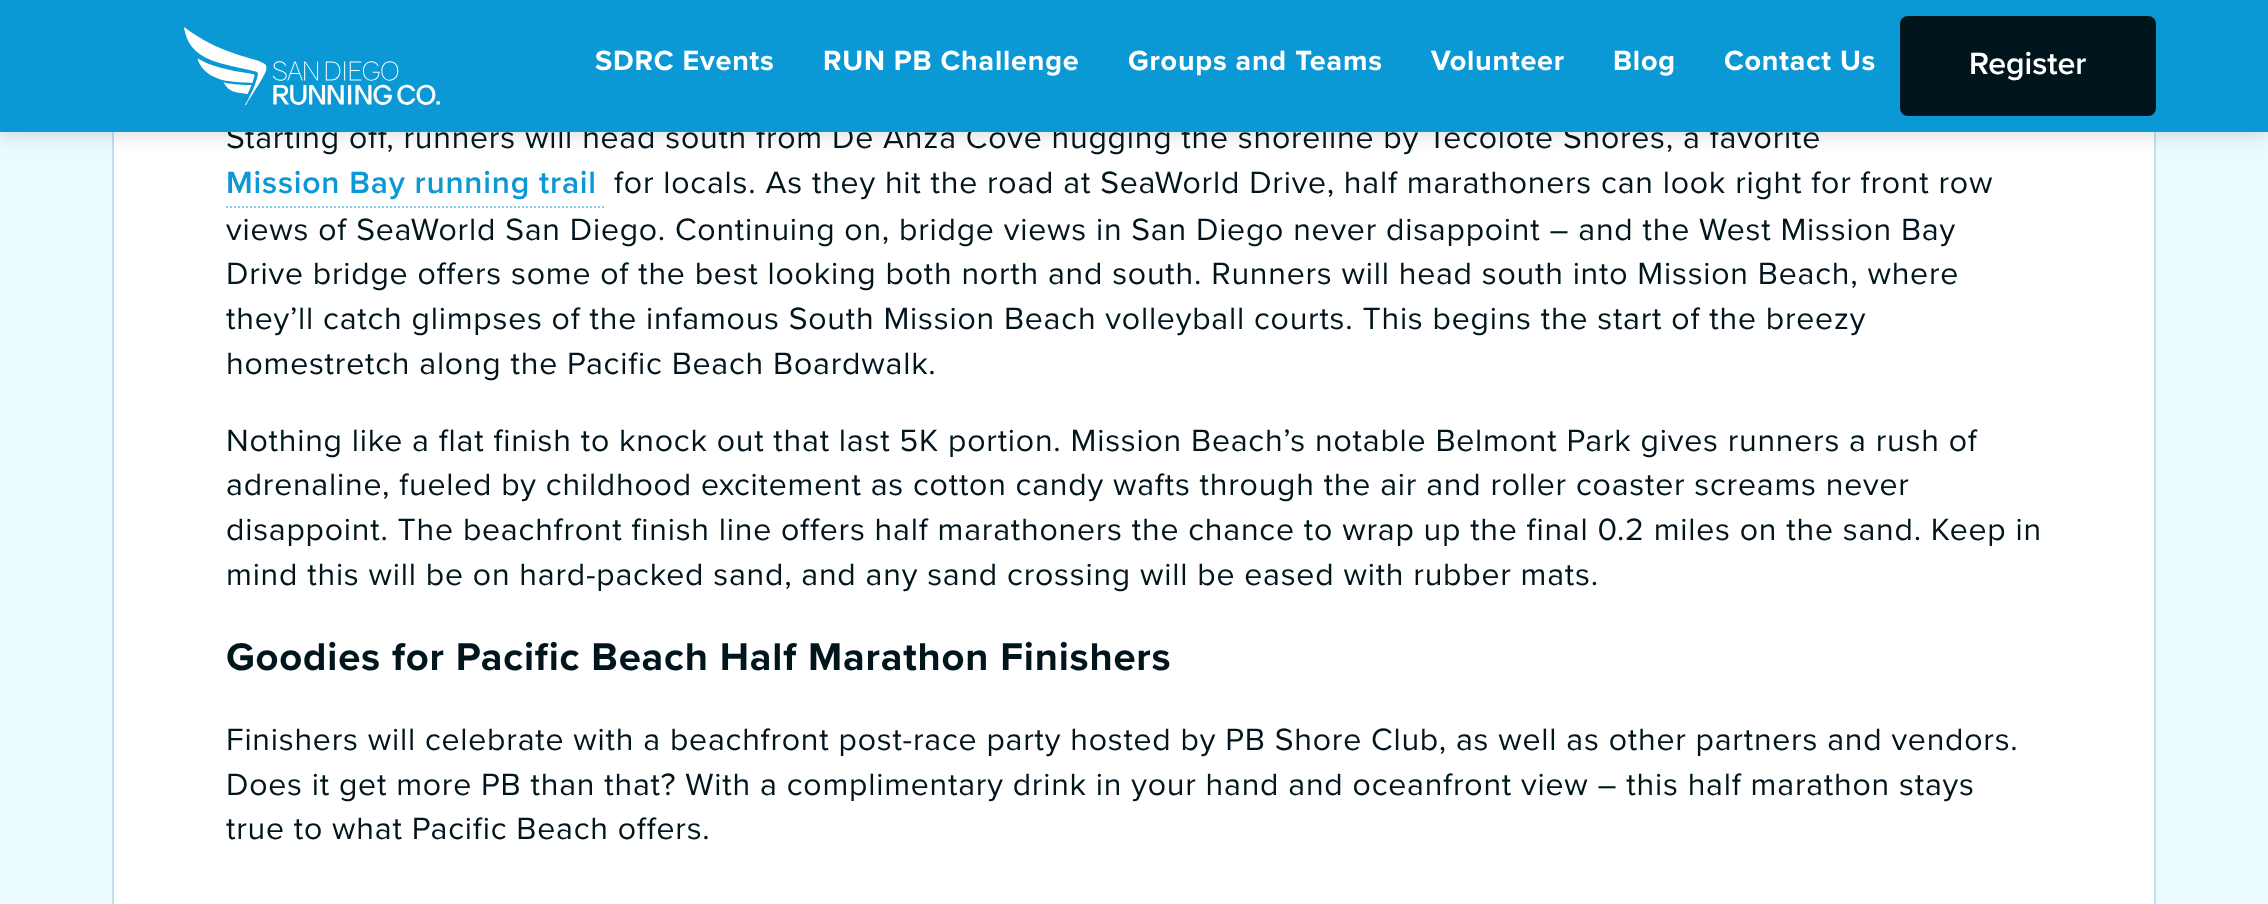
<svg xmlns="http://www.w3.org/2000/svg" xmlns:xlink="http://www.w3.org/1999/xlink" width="2268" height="904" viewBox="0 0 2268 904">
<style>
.cls-1{font:32px Proxima Nova;letter-spacing:0.78px;fill:#01151d}
.cls-2{font:bold 28.75px Proxima Nova;letter-spacing:0.78px;fill:#ffffff}
.cls-3{font:600 32px Proxima Nova;fill:#ffffff}
.cls-4{font:600 32px Proxima Nova;letter-spacing:0.78px;fill:#0b99d5}
.cls-5{font:bold 40px Proxima Nova;letter-spacing:0.78px;fill:#01151d}
</style>
<rect width="100%" height="100%" fill="#ebfafe"/>
<rect fill="#ffffff" x="114" y="132" width="2040" height="772"/>
<rect fill="none" stroke="#bee1f0" stroke-width="2" x="113" y="-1" width="2042" height="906"/>
<rect fill="#000000" fill-opacity="0.15" filter="blur(10px)" x="0" y="2" width="2268" height="132"/>
<path fill="none" stroke="#85ccea" stroke-width="2" stroke-dasharray="2 2" d="M226 207H604"/>
<text class="cls-1" x="226" y="148">Starting off, runners will head south from De Anza Cove hugging the shoreline by Tecolote Shores, a favorite</text>
<rect fill="#0b99d5" x="0" y="0" width="2268" height="132"/>
<image xlink:href="image0.png" x="184" y="27" width="256" height="79"/>
<text class="cls-2" x="1724" y="70">Contact Us</text>
<text class="cls-2" x="1613" y="70">Blog</text>
<text class="cls-2" x="1431" y="70">Volunteer</text>
<text class="cls-2" x="1128" y="70">Groups and Teams</text>
<text class="cls-2" x="823" y="70">RUN PB Challenge</text>
<text class="cls-2" x="595" y="70">SDRC Events</text>
<rect fill="#01151d" x="1900" y="16" width="256" height="100" rx="8"/>
<text class="cls-3" x="1969" y="74">Register</text>
<text class="cls-4" x="226" y="193">Mission Bay running trail</text>
<text class="cls-1" x="614" y="193">for locals. As they hit the road at SeaWorld Drive, half marathoners can look right for front row</text>
<text class="cls-1"><tspan x="226" y="240">views of SeaWorld San Diego. Continuing on, bridge views in San Diego never disappoint – and the West Mission Bay</tspan><tspan x="226" y="284">Drive bridge offers some of the best looking both north and south. Runners will head south into Mission Beach, where</tspan><tspan x="226" y="329">they’ll catch glimpses of the infamous South Mission Beach volleyball courts. This begins the start of the breezy</tspan><tspan x="226" y="374">homestretch along the Pacific Beach Boardwalk.</tspan></text>
<text class="cls-1"><tspan x="226" y="451">Nothing like a flat finish to knock out that last 5K portion. Mission Beach’s notable Belmont Park gives runners a rush of</tspan><tspan x="226" y="495">adrenaline, fueled by childhood excitement as cotton candy wafts through the air and roller coaster screams never</tspan><tspan x="226" y="540">disappoint. The beachfront finish line offers half marathoners the chance to wrap up the final 0.2 miles on the sand. Keep in</tspan><tspan x="226" y="585">mind this will be on hard-packed sand, and any sand crossing will be eased with rubber mats.</tspan></text>
<text class="cls-5" x="226" y="670">Goodies for Pacific Beach Half Marathon Finishers</text>
<text class="cls-1"><tspan x="226" y="750">Finishers will celebrate with a beachfront post-race party hosted by PB Shore Club, as well as other partners and vendors.</tspan><tspan x="226" y="795">Does it get more PB than that? With a complimentary drink in your hand and oceanfront view – this half marathon stays</tspan><tspan x="226" y="839">true to what Pacific Beach offers.</tspan></text>
</svg>
